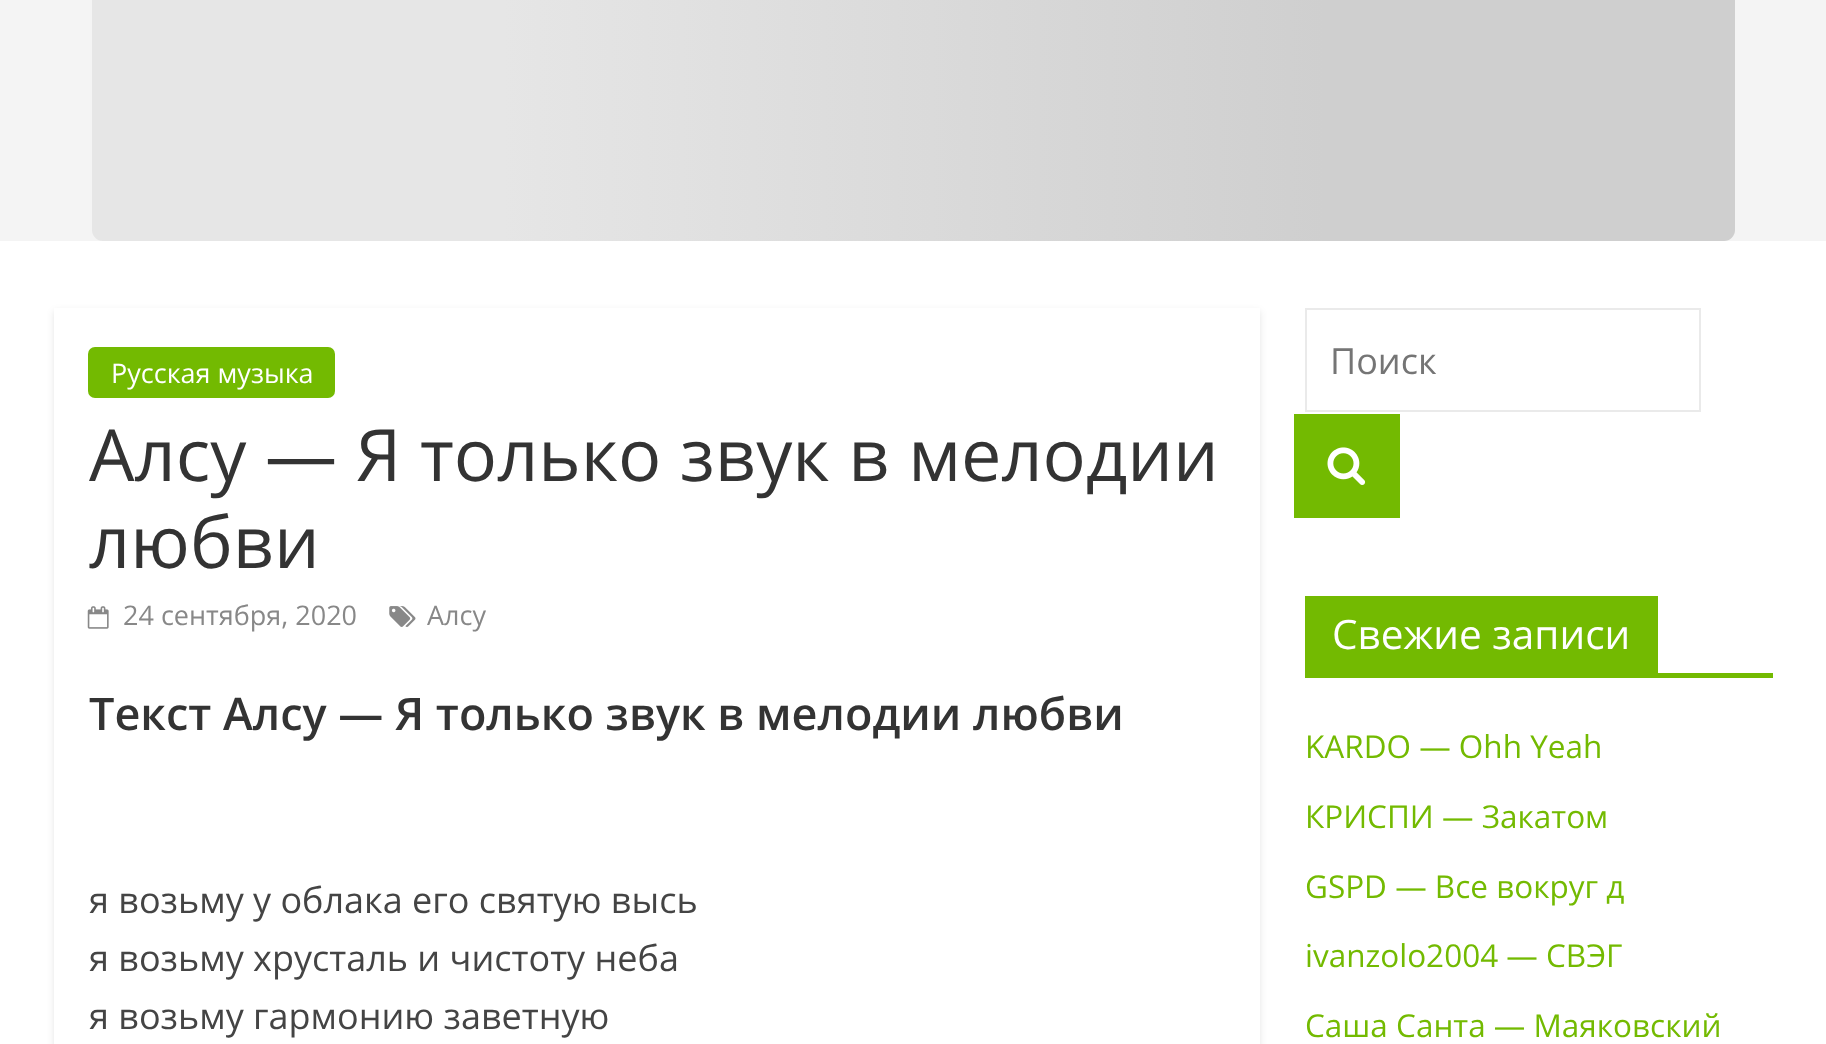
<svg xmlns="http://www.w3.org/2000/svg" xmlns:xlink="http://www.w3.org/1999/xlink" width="1826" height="1044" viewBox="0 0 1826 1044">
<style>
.cls-1{font:27px Open Sans;fill:#ffffff}
.cls-2{font:72px Open Sans;fill:#333333}
.cls-3{font:27px Open Sans;fill:#888888}
.cls-4{font:600 45px Open Sans;fill:#333333}
.cls-5{font:36px Open Sans;fill:#444444}
.cls-6{font:36px Open Sans;fill:#757575}
.cls-7{font:40.5px Open Sans;fill:#ffffff}
.cls-8{font:31.5px Open Sans;fill:#73ba01}
</style>
<defs>
<linearGradient id="g1" gradientUnits="userSpaceOnUse" x1="92" y1="-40" x2="1735" y2="-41"><stop offset="0.25" stop-color="#e6e6e6"/><stop offset="0.75" stop-color="#cfcfcf"/></linearGradient>
<clipPath id="clip1"><path d="M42 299H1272V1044H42ZM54 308H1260V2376H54Z" clip-rule="evenodd"/></clipPath>
</defs>
<rect width="100%" height="100%" fill="#ffffff"/>
<rect fill="#f4f4f4" x="0" y="0" width="1826" height="241"/>
<rect fill="url(#g1)" x="92" y="-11" width="1643" height="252" rx="11"/>
<g clip-path="url(#clip1)">
<rect fill="#000000" fill-opacity="0.1" filter="blur(3.5px)" x="54" y="311" width="1206" height="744"/>
</g>
<rect fill="#73ba01" x="88" y="347" width="247" height="51" rx="7"/>
<image xlink:href="image0.png" x="87" y="606" width="22" height="23"/>
<image xlink:href="image1.png" x="389" y="606" width="27" height="21"/>
<rect fill="none" stroke="#eaeaea" stroke-width="2" x="1306" y="309" width="394" height="102"/>
<rect fill="#73ba01" x="1294" y="414" width="106" height="104"/>
<image xlink:href="image2.png" x="1327" y="447" width="39" height="38"/>
<rect fill="#73ba01" x="1305" y="673" width="468" height="5"/>
<rect fill="#73ba01" x="1305" y="596" width="353" height="77"/>
<text class="cls-1" x="111" y="383">Русская музыка</text>
<text class="cls-2"><tspan x="89" y="481">Алсу — Я только звук в мелодии</tspan><tspan x="89" y="568">любви</tspan></text>
<text class="cls-3" x="123" y="625">24 сентября, 2020</text>
<text class="cls-3" x="427" y="625">Алсу</text>
<text class="cls-4" x="89" y="730">Текст Алсу — Я только звук в мелодии любви</text>
<text class="cls-5"><tspan x="89" y="913">я возьму у облака его святую высь</tspan><tspan x="89" y="971">я возьму хрусталь и чистоту неба</tspan><tspan x="89" y="1029">я возьму гармонию заветную</tspan></text>
<text class="cls-6" x="1330" y="374">Поиск</text>
<text class="cls-7" x="1332" y="649">Свежие записи</text>
<text class="cls-8" x="1305" y="758">KARDO — Ohh Yeah</text>
<text class="cls-8" x="1305" y="828">КРИСПИ — Закатом</text>
<text class="cls-8" x="1305" y="898">GSPD — Все вокруг д</text>
<text class="cls-8" x="1305" y="967">ivanzolo2004 — СВЭГ</text>
<text class="cls-8" x="1305" y="1037">Саша Санта — Маяковский</text>
</svg>
